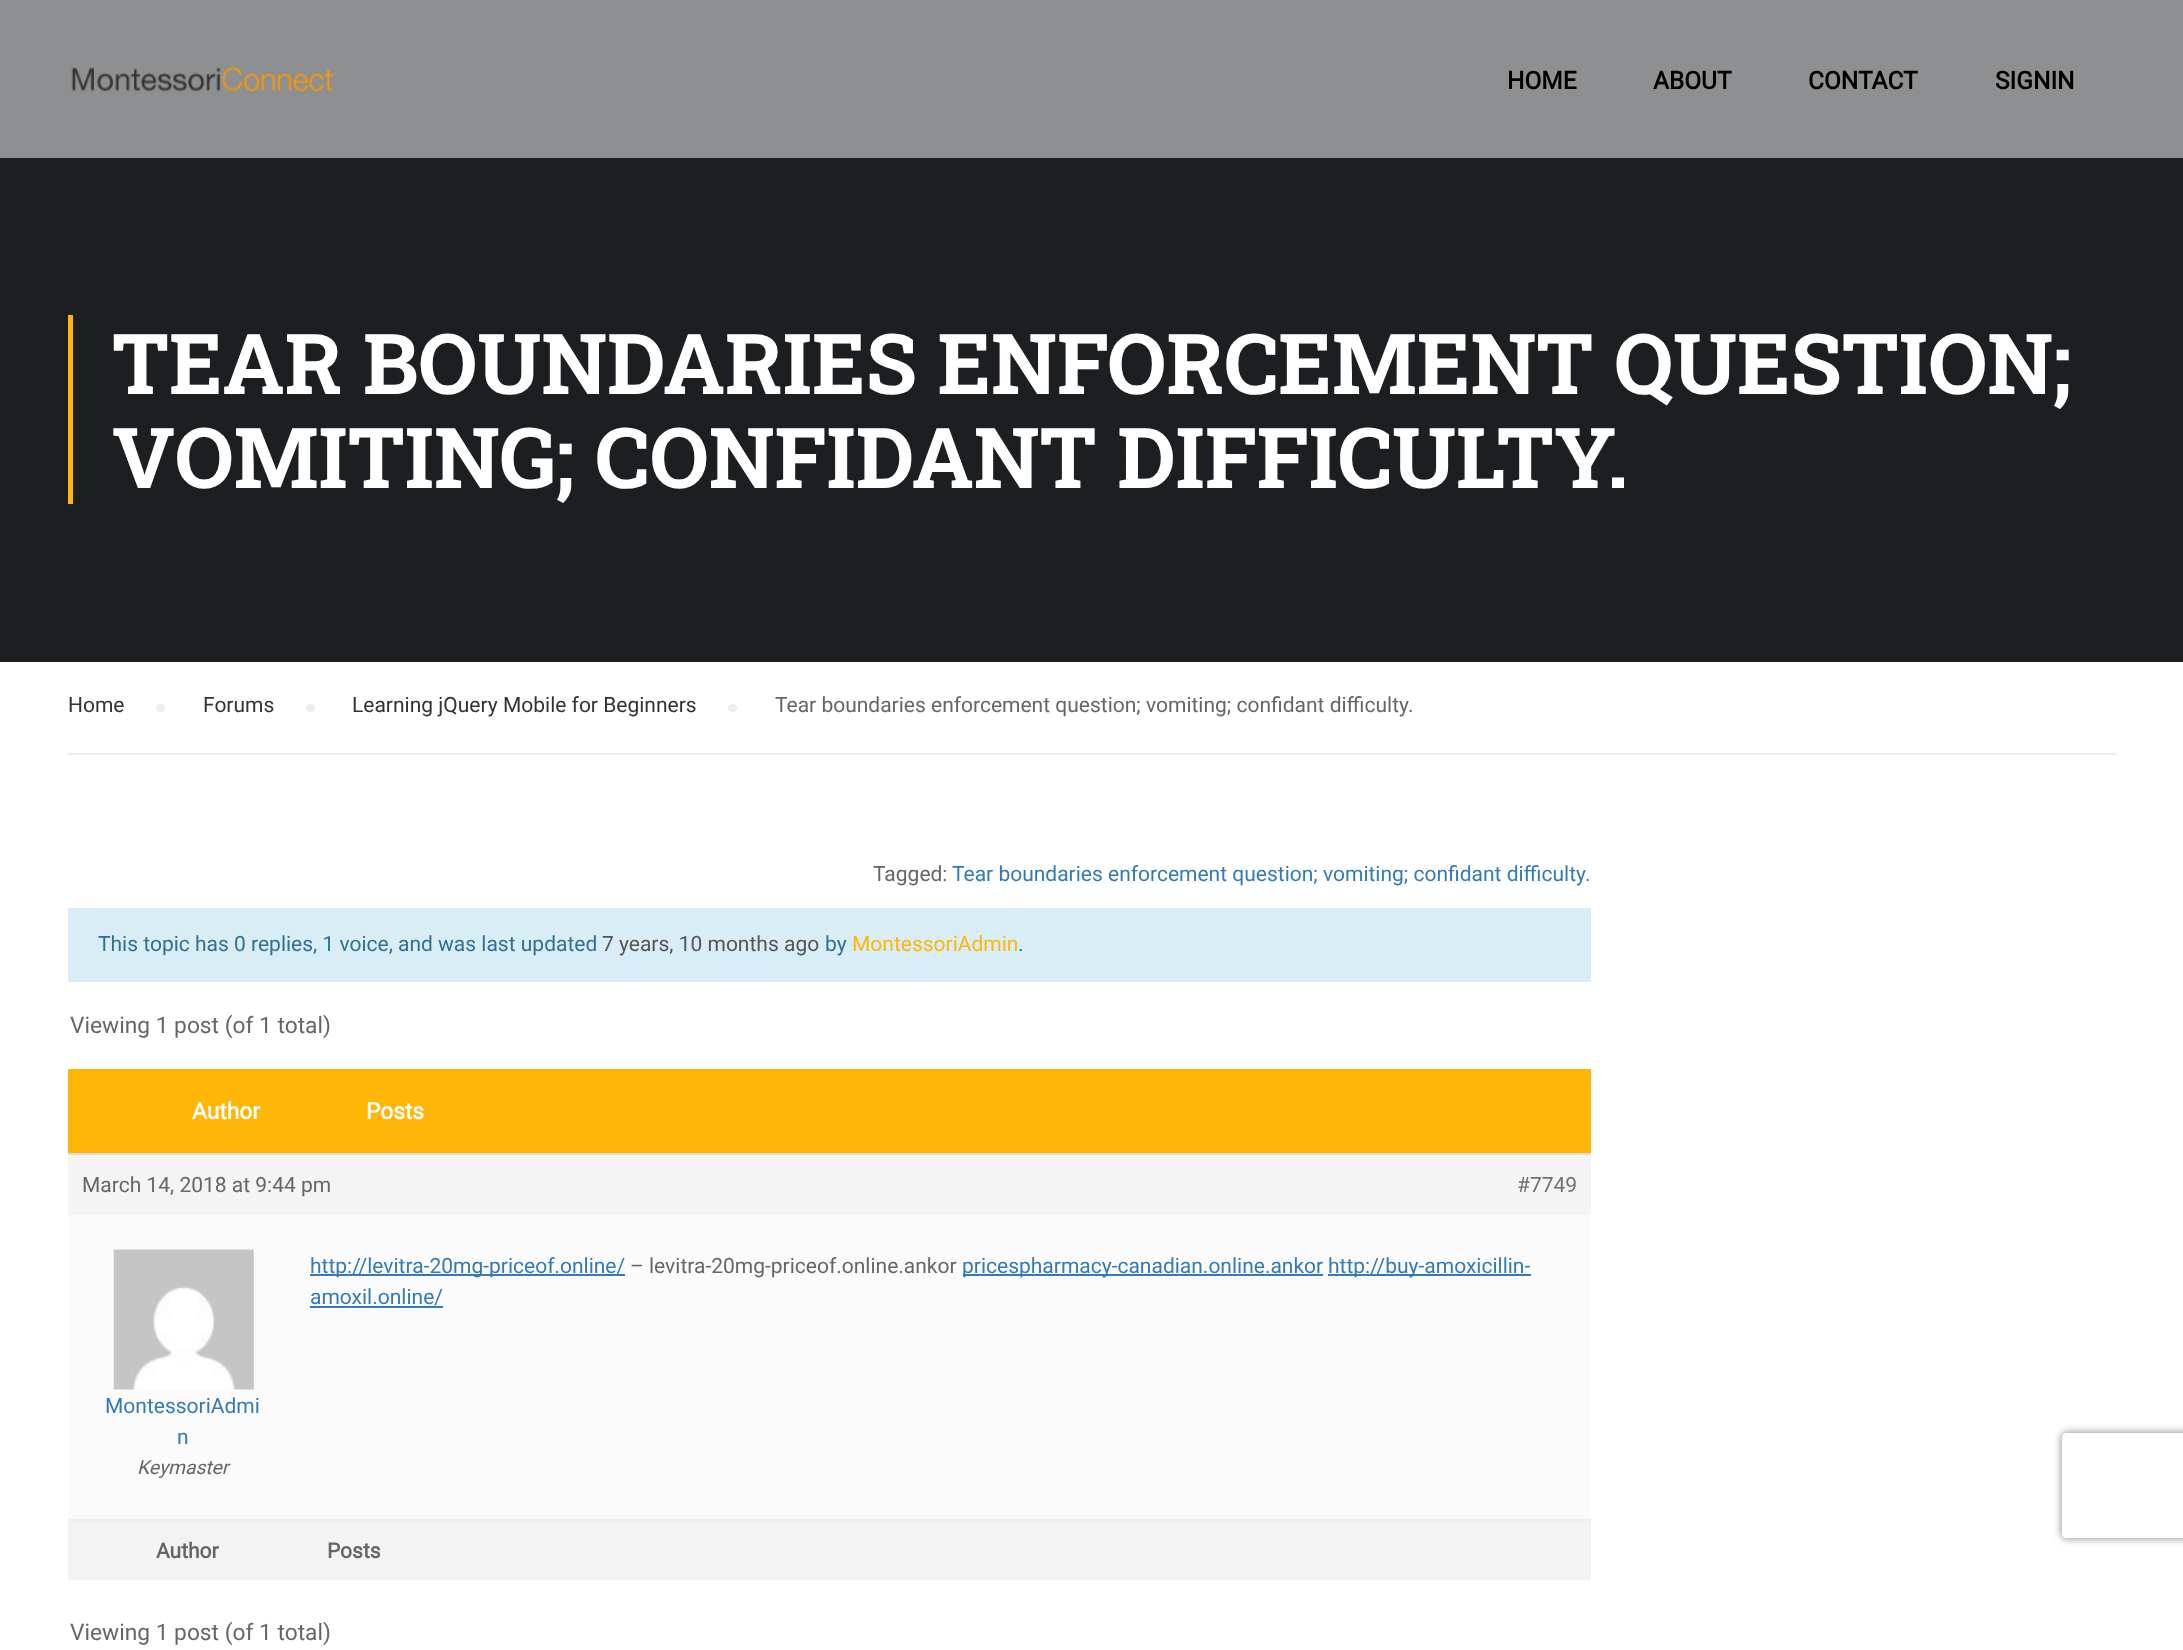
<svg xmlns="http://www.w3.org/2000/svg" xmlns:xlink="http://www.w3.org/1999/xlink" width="2183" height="1650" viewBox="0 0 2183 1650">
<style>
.cls-1{font:bold 24.5px Roboto;fill:#000000}
.cls-2{font:bold 84px Roboto Slab;fill:#ffffff}
.cls-3{font:21px Roboto;fill:#333333}
.cls-4{font:21px Roboto;fill:#666666}
.cls-5{font:21px Roboto;fill:#337ab7}
.cls-6{font:21px Roboto;fill:#31708f}
.cls-7{font:21px Roboto;fill:#555555}
.cls-8{font:21px Roboto;fill:#ffb606}
.cls-9{font:22.75px Roboto;fill:#666666}
.cls-10{font:bold 22.75px Roboto;fill:#ffffff}
.cls-11{font:21px Roboto;fill:#707070}
.cls-12{font:italic 19.25px Roboto;fill:#666666}
.cls-13{font:bold 21px Roboto;fill:#666666}
</style>
<defs>
<clipPath id="clip1"><path d="M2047 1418H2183V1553H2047ZM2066 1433H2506C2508 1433 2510 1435 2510 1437V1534C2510 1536 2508 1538 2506 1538H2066C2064 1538 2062 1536 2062 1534V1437C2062 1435 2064 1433 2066 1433Z" clip-rule="evenodd"/></clipPath>
</defs>
<rect width="100%" height="100%" fill="#ffffff"/>
<rect fill="#8e8f90" x="0" y="0" width="2183" height="158"/>
<image xlink:href="image0.png" x="71" y="67" width="262" height="25"/>
<rect fill="#1c1f21" x="0" y="158" width="2183" height="504"/>
<rect fill="#ffb606" x="68" y="315" width="5" height="189"/>
<rect fill="#eeeeee" x="68" y="753" width="2048" height="2"/>
<rect fill="#eeeeee" x="156" y="704" width="9" height="8" rx="4"/>
<rect fill="#eeeeee" x="306" y="704" width="9" height="8" rx="4"/>
<rect fill="#eeeeee" x="728" y="704" width="9" height="8" rx="4"/>
<rect fill="#d9edf7" x="68" y="908" width="1523" height="74"/>
<rect fill="#ffb606" x="68" y="1069" width="1523" height="84"/>
<rect fill="#f4f4f4" x="68" y="1155" width="1523" height="60"/>
<rect fill="#dddddd" x="68" y="1153" width="1523" height="2"/>
<rect fill="#fbfbfb" x="68" y="1215" width="1523" height="304"/>
<rect fill="#337ab7" x="310" y="1274" width="315" height="2"/>
<rect fill="#337ab7" x="963" y="1274" width="360" height="2"/>
<rect fill="#337ab7" x="1328" y="1274" width="203" height="2"/>
<rect fill="#337ab7" x="310" y="1306" width="133" height="2"/>
<image xlink:href="image1.png" x="113" y="1249" width="141" height="141"/>
<rect fill="#f3f3f3" x="68" y="1521" width="1523" height="59"/>
<rect fill="#eeeeee" x="68" y="1519" width="1523" height="2"/>
<g clip-path="url(#clip1)">
<rect fill="#808080" filter="blur(4.5px)" x="2062" y="1433" width="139" height="105" rx="4"/>
</g>
<text class="cls-1" x="1507" y="89">HOME</text>
<text class="cls-1" x="1653" y="89">ABOUT</text>
<text class="cls-1" x="1808" y="89">CONTACT</text>
<text class="cls-1" x="1995" y="89">SIGNIN</text>
<text class="cls-2"><tspan x="112" y="394">TEAR BOUNDARIES ENFORCEMENT QUESTION;</tspan><tspan x="112" y="488">VOMITING; CONFIDANT DIFFICULTY.</tspan></text>
<text class="cls-3" x="68" y="712">Home</text>
<text class="cls-3" x="203" y="712">Forums</text>
<text class="cls-3" x="352" y="712">Learning jQuery Mobile for Beginners</text>
<text class="cls-4" x="775" y="712">Tear boundaries enforcement question; vomiting; confidant difficulty.</text>
<text class="cls-4" x="873" y="881">Tagged:</text>
<text class="cls-5" x="952" y="881">Tear boundaries enforcement question; vomiting; confidant difficulty.</text>
<text class="cls-6" x="98" y="951">This topic has 0 replies, 1 voice, and was last updated</text>
<text class="cls-7" x="602" y="951">7 years, 10 months ago</text>
<text class="cls-6" x="825" y="951">by</text>
<text class="cls-8" x="852" y="951">MontessoriAdmin</text>
<text class="cls-6" x="1018" y="951">.</text>
<text class="cls-9" x="70" y="1033">Viewing 1 post (of 1 total)</text>
<text class="cls-10" x="192" y="1119">Author</text>
<text class="cls-10" x="366" y="1119">Posts</text>
<text class="cls-4" x="82" y="1192">March 14, 2018 at 9:44 pm</text>
<text class="cls-11" x="1517" y="1192">#7749</text>
<text class="cls-5" x="310" y="1273">http://levitra-20mg-priceof.online/</text>
<text class="cls-4" x="630" y="1273">– levitra-20mg-priceof.online.ankor</text>
<text class="cls-5" x="962" y="1273">pricespharmacy-canadian.online.ankor</text>
<text class="cls-5" x="1328" y="1273">http://buy-amoxicillin-</text>
<text class="cls-5" x="310" y="1304">amoxil.online/</text>
<text class="cls-5" x="105" y="1413">MontessoriAdmi</text>
<text class="cls-5" x="177" y="1444">n</text>
<text class="cls-12" x="137" y="1474">Keymaster</text>
<text class="cls-13" x="156" y="1558">Author</text>
<text class="cls-13" x="327" y="1558">Posts</text>
<text class="cls-9" x="70" y="1640">Viewing 1 post (of 1 total)</text>
</svg>
